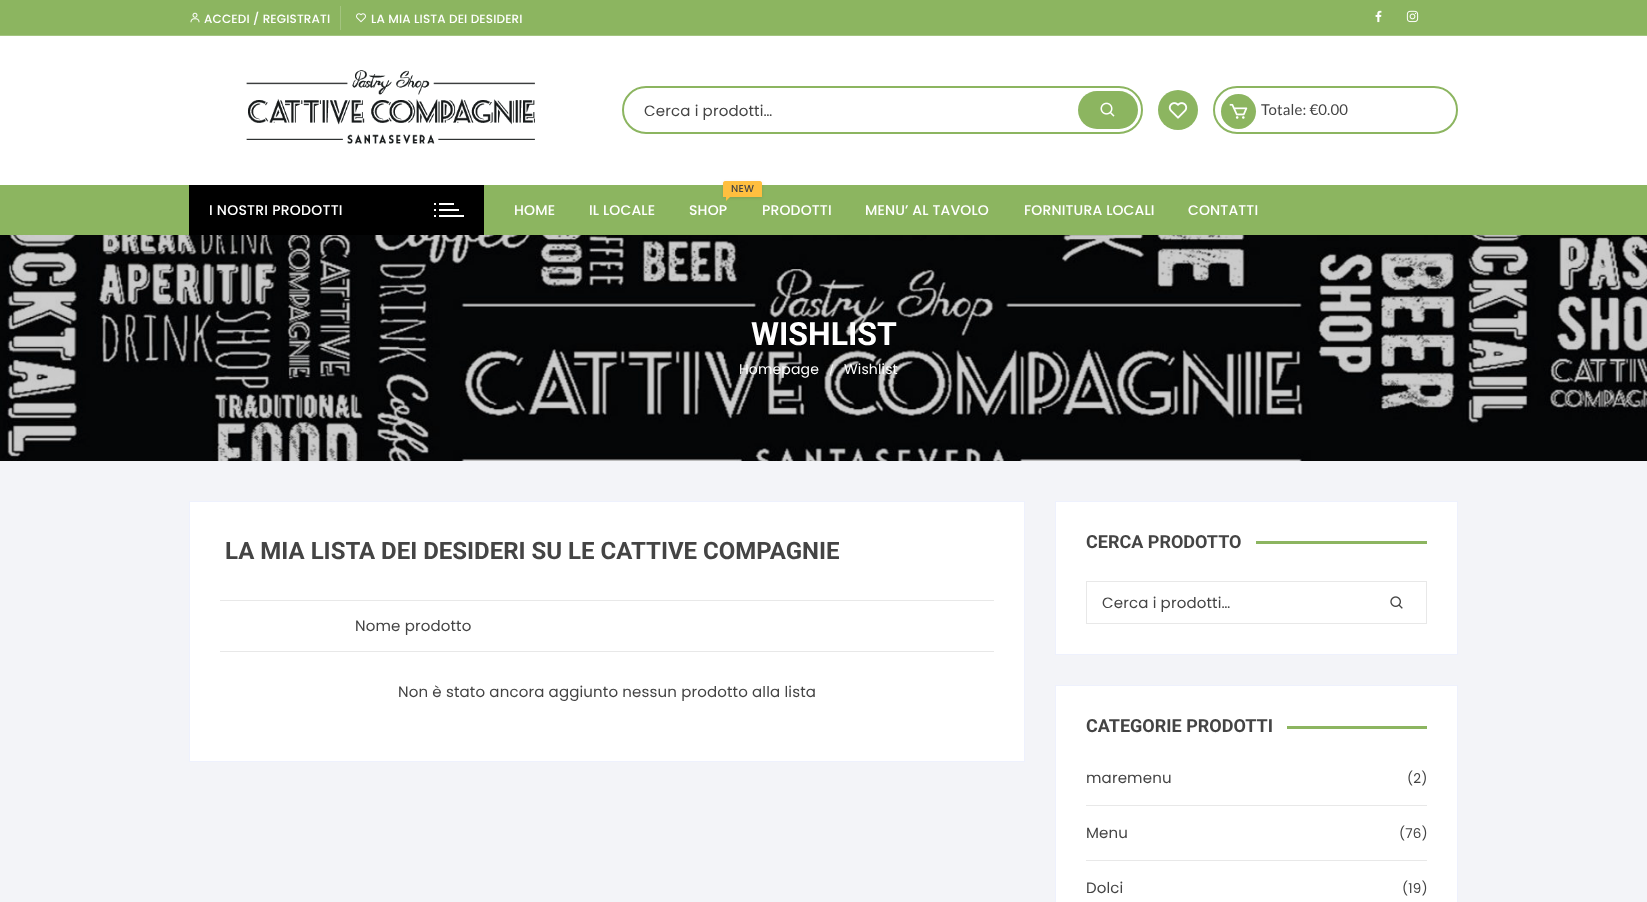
<svg xmlns="http://www.w3.org/2000/svg" xmlns:xlink="http://www.w3.org/1999/xlink" width="1647" height="902" viewBox="0 0 1647 902">
<style>
.cls-1{font:500 12px Poppins;letter-spacing:0.15px;fill:#ffffff}
.cls-2{font:15px Poppins;letter-spacing:0.15px;fill:#444444}
.cls-3{font:15px Lato;letter-spacing:0.15px;fill:#444444}
.cls-4{font:500 14px Poppins;letter-spacing:0.25px;fill:#ffffff}
.cls-5{font:500 14px Poppins;letter-spacing:0.15px;fill:#ffffff}
.cls-6{font:500 10px Poppins;letter-spacing:0.25px;fill:#444444}
.cls-7{font:bold 32px Roboto;fill:#ffffff}
.cls-8{font:14px Poppins;letter-spacing:0.15px;fill:#ffffff}
.cls-9{font:10px Poppins;letter-spacing:0.15px;fill:#ffffff}
.cls-10{font:bold 24px Roboto;fill:#444444}
.cls-11{font:bold 18px Roboto;fill:#444444}
.cls-12{font:13.5px Poppins;letter-spacing:0.15px;fill:#444444}
</style>
<rect width="100%" height="100%" fill="#f3f4f8"/>
<rect fill="#ffffff" x="0" y="36" width="1647" height="149"/>
<rect fill="#8cb560" x="0" y="0" width="1647" height="35"/>
<rect fill="#a3c480" x="0" y="35" width="1647" height="1"/>
<rect fill="#a3c480" x="340" y="6" width="1" height="24"/>
<image xlink:href="image0.png" x="190" y="12" width="10" height="11"/>
<image xlink:href="image1.png" x="356" y="13" width="10" height="10"/>
<image xlink:href="image2.png" x="1375" y="10" width="7" height="13"/>
<image xlink:href="image3.png" x="1406" y="10" width="13" height="13"/>
<image xlink:href="image4.png" x="246" y="70" width="289" height="74"/>
<rect fill="none" stroke="#8cb560" stroke-width="2" x="623" y="87" width="519" height="46" rx="23"/>
<rect fill="#8cb560" x="1078" y="91" width="60" height="38" rx="19"/>
<image xlink:href="image5.png" x="1100" y="102" width="15" height="15"/>
<circle fill="#8cb560" cx="1178" cy="110" r="20"/>
<image xlink:href="image6.png" x="1168" y="102" width="20" height="17"/>
<rect fill="none" stroke="#8cb560" stroke-width="2" x="1214" y="87" width="243" height="46" rx="23"/>
<circle fill="#8cb560" cx="1238.5" cy="111.5" r="17.5"/>
<image xlink:href="image7.png" x="1229" y="103" width="19" height="16"/>
<rect fill="#8cb560" x="0" y="185" width="1647" height="50"/>
<rect fill="#000000" x="189" y="185" width="295" height="50"/>
<rect fill="#ffffff" x="439" y="203" width="15" height="2"/>
<rect fill="#ffffff" x="434" y="203" width="2" height="2"/>
<rect fill="#ffffff" x="439" y="209" width="20" height="2"/>
<rect fill="#ffffff" x="434" y="209" width="2" height="2"/>
<rect fill="#ffffff" x="439" y="215" width="25" height="2"/>
<rect fill="#ffffff" x="434" y="215" width="2" height="2"/>
<rect fill="#000000" fill-opacity="0.1" filter="blur(1.5px)" x="723" y="182" width="39" height="16" rx="2"/>
<path fill="#ffbf3f" d="M725 181H760C761 181 762 182 762 183V197H723V183C723 182 724 181 725 181Z"/>
<path fill="#ffbf3f" d="M726 196H731L726 201Z"/>
<image xlink:href="image8.png" x="0" y="235" width="1647" height="226"/>
<rect fill="#ffffff" stroke="#eef1fd" x="189.5" y="501.5" width="835" height="260"/>
<rect fill="#e8e8e8" x="220" y="600" width="774" height="1"/>
<rect fill="#e8e8e8" x="220" y="651" width="774" height="1"/>
<rect fill="#ffffff" stroke="#eef1fd" x="1055.5" y="501.5" width="402" height="153"/>
<rect fill="#8cb560" x="1256" y="541" width="171" height="3"/>
<rect fill="none" stroke="#e8e8e8" x="1086.5" y="581.5" width="340" height="42"/>
<image xlink:href="image9.png" x="1390" y="596" width="13" height="13"/>
<rect fill="#ffffff" stroke="#eef1fd" x="1055.5" y="685.5" width="402" height="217"/>
<rect fill="#8cb560" x="1287" y="726" width="140" height="3"/>
<rect fill="#e8e8e8" x="1086" y="805" width="341" height="1"/>
<rect fill="#e8e8e8" x="1086" y="860" width="341" height="1"/>
<text class="cls-1" x="204" y="23">ACCEDI / REGISTRATI</text>
<text class="cls-1" x="371" y="23">LA MIA LISTA DEI DESIDERI</text>
<text class="cls-2" x="644" y="116">Cerca i prodotti…</text>
<text class="cls-3" x="1261" y="115">Totale: €0.00</text>
<text class="cls-4" x="209" y="215">I NOSTRI PRODOTTI</text>
<text class="cls-5" x="514" y="215">HOME</text>
<text class="cls-5" x="589" y="215">IL LOCALE</text>
<text class="cls-6" x="731" y="192">NEW</text>
<text class="cls-5" x="689" y="215">SHOP</text>
<text class="cls-5" x="762" y="215">PRODOTTI</text>
<text class="cls-5" x="865" y="215">MENU’ AL TAVOLO</text>
<text class="cls-5" x="1024" y="215">FORNITURA LOCALI</text>
<text class="cls-5" x="1188" y="215">CONTATTI</text>
<text class="cls-7" x="751" y="345">WISHLIST</text>
<text class="cls-8" x="739" y="374">Homepage</text>
<text class="cls-9" x="829" y="374">/</text>
<text class="cls-8" x="844" y="374">Wishlist</text>
<text class="cls-10" x="225" y="559">LA MIA LISTA DEI DESIDERI SU LE CATTIVE COMPAGNIE</text>
<text class="cls-2" x="355" y="631">Nome prodotto</text>
<text class="cls-2" x="398" y="697">Non è stato ancora aggiunto nessun prodotto alla lista</text>
<text class="cls-11" x="1086" y="548">CERCA PRODOTTO</text>
<text class="cls-2" x="1102" y="608">Cerca i prodotti…</text>
<text class="cls-11" x="1086" y="732">CATEGORIE PRODOTTI</text>
<text class="cls-2" x="1086" y="783">maremenu</text>
<text class="cls-12" x="1407" y="783">(2)</text>
<text class="cls-2" x="1086" y="838">Menu</text>
<text class="cls-12" x="1399" y="838">(76)</text>
<text class="cls-2" x="1086" y="893">Dolci</text>
<text class="cls-12" x="1402" y="893">(19)</text>
</svg>
